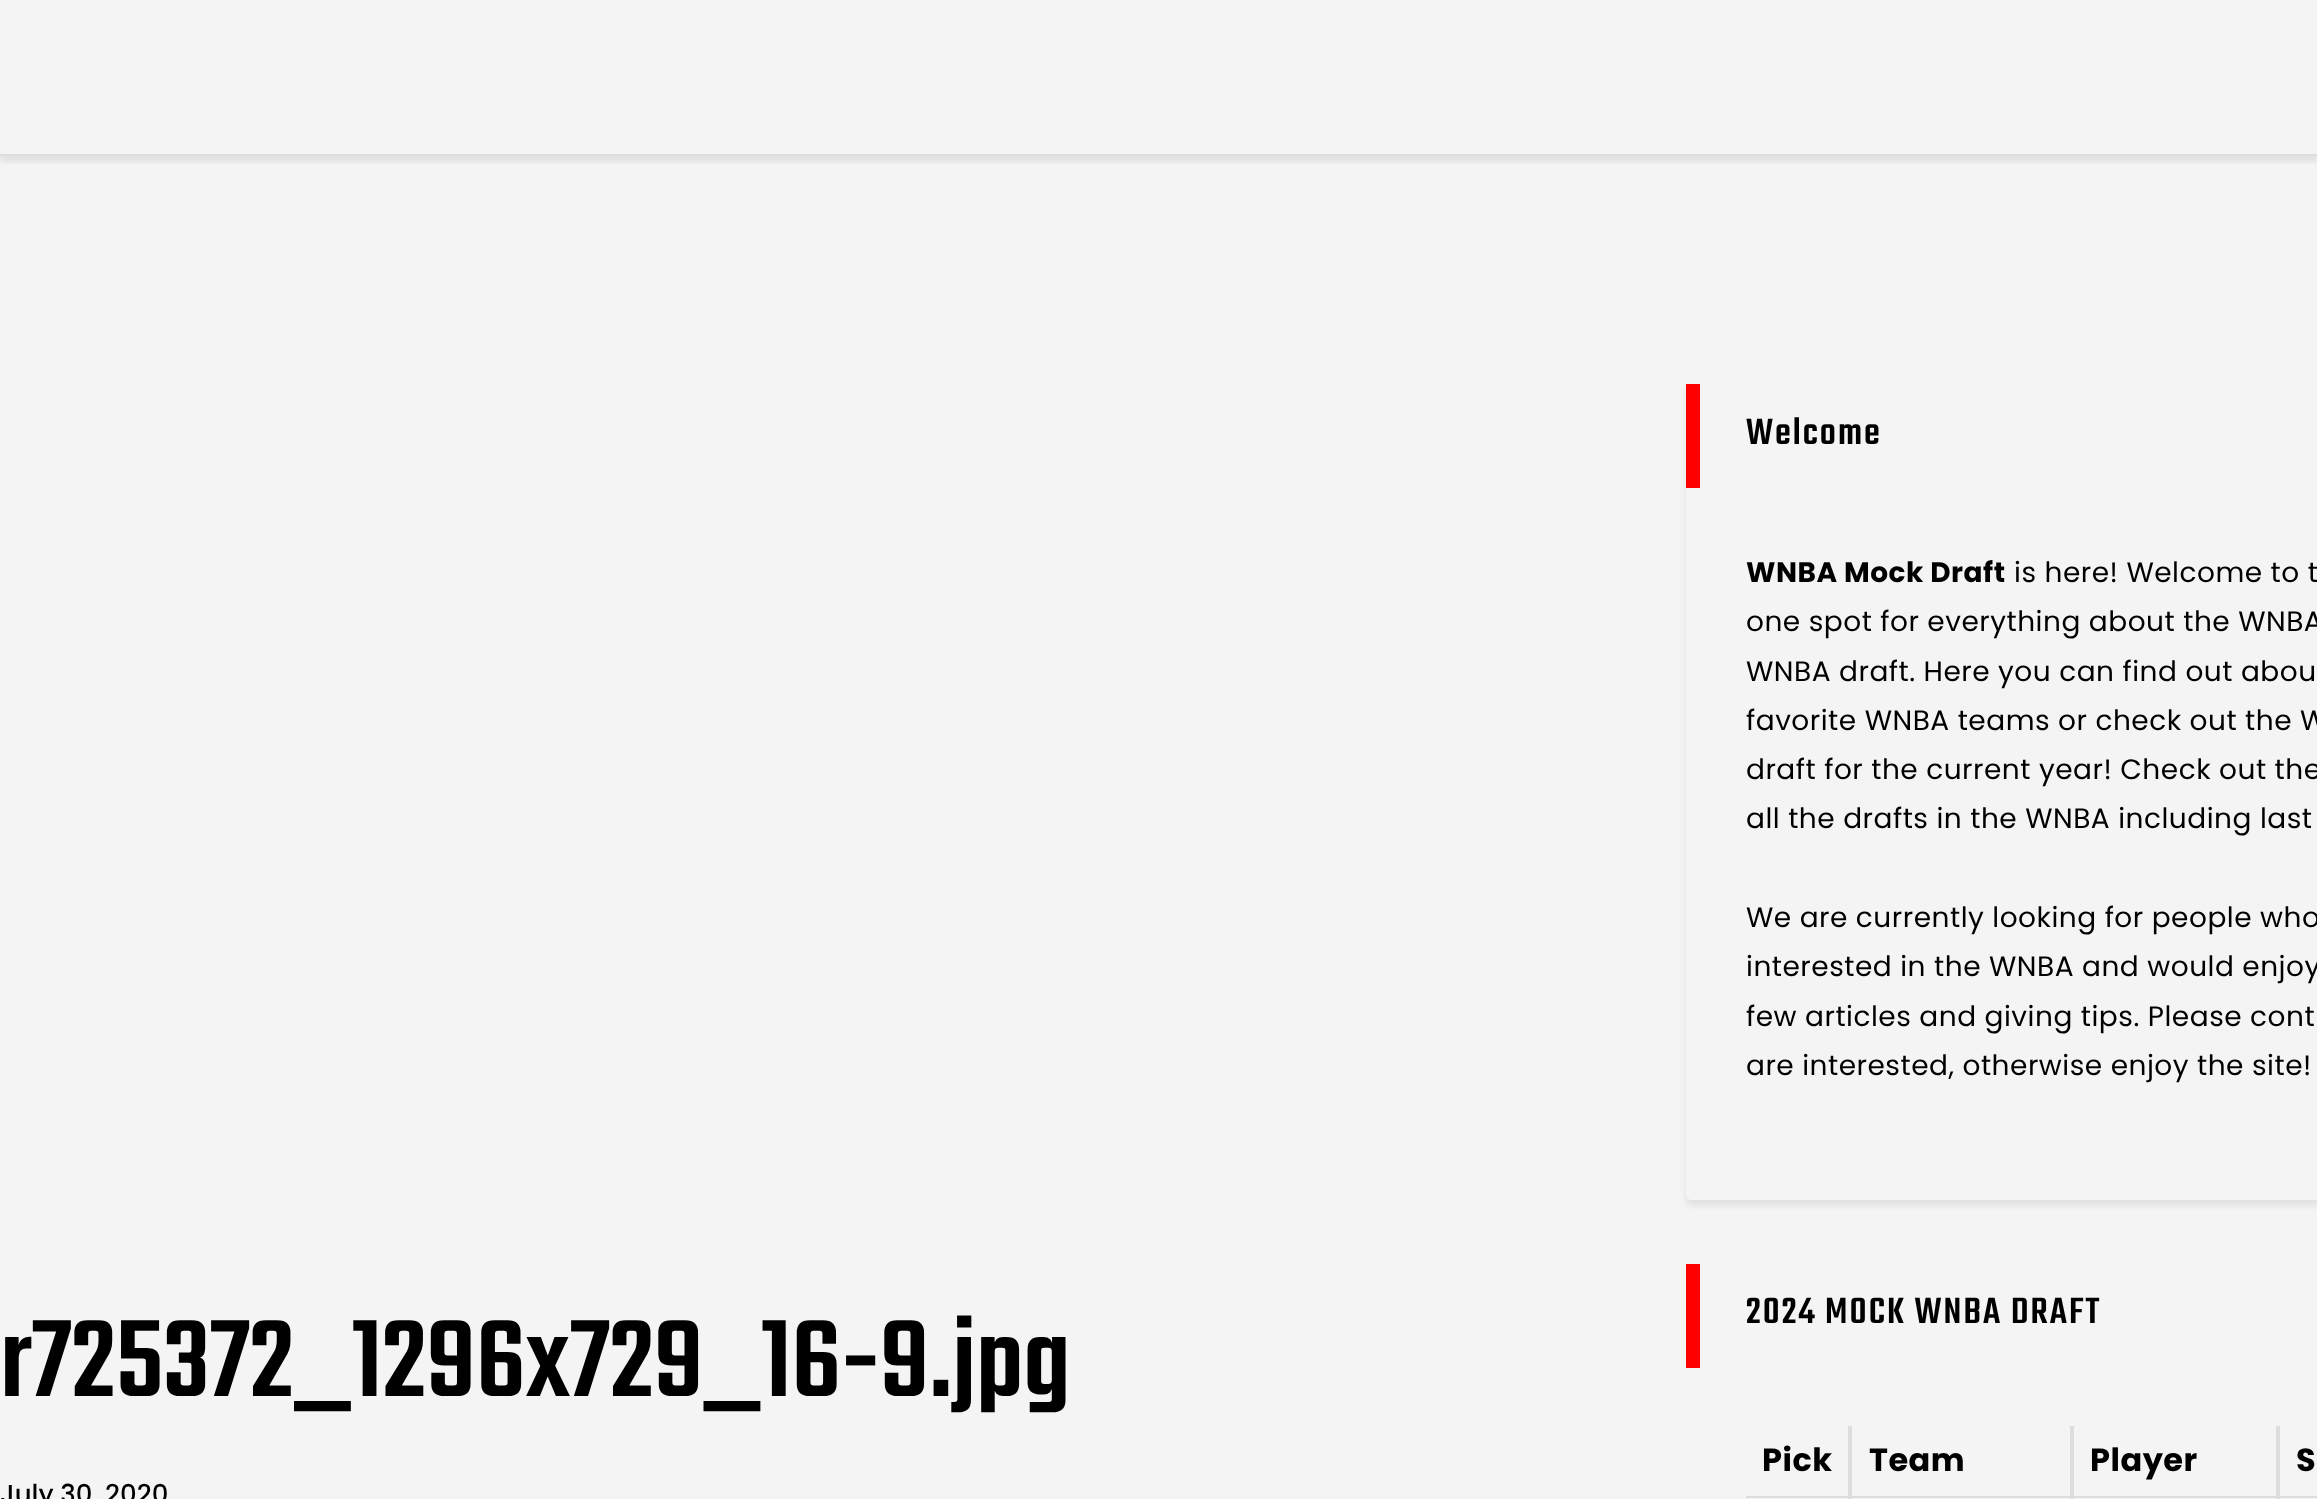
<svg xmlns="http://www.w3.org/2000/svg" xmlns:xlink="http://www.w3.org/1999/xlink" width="2317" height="1499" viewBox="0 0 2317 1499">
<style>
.cls-1{font:500 120px Teko;fill:#000000}
.cls-2{font:500 26px Poppins;fill:#000000}
.cls-3{font:500 40px Teko;letter-spacing:2px;fill:#000000}
.cls-4{font:bold 28px Poppins;letter-spacing:0.5px;fill:#000000}
.cls-5{font:28px Poppins;letter-spacing:0.5px;fill:#000000}
.cls-6{font:bold 32px Poppins;letter-spacing:0.5px;fill:#000000}
</style>
<defs>
<clipPath id="clip1"><rect x="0" y="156" width="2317" height="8"/></clipPath>
<clipPath id="clip2"><path d="M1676 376H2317V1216H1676ZM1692 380H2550C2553.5 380 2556 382.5 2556 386V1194C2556 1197.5 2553.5 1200 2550 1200H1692C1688.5 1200 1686 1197.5 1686 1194V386C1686 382.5 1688.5 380 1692 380Z" clip-rule="evenodd"/></clipPath>
</defs>
<rect width="100%" height="100%" fill="#f4f4f4"/>
<g clip-path="url(#clip1)">
<rect fill="#000000" fill-opacity="0.08" filter="blur(3px)" x="0" y="6" width="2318" height="156"/>
</g>
<rect fill="#dddddd" x="0" y="154" width="2317" height="2"/>
<g clip-path="url(#clip2)">
<rect fill="#000000" fill-opacity="0.07" filter="blur(3px)" x="1686" y="386" width="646" height="820" rx="6"/>
</g>
<rect fill="#ff0000" x="1686" y="384" width="14" height="104"/>
<rect fill="#ff0000" x="1686" y="1264" width="14" height="104"/>
<rect fill="#dddddd" x="1746" y="1496" width="571" height="2"/>
<rect fill="#dddddd" x="2276" y="1426" width="4" height="73"/>
<rect fill="#dddddd" x="1848" y="1426" width="4" height="73"/>
<rect fill="#dddddd" x="2070" y="1426" width="4" height="73"/>
<text class="cls-1" x="0" y="1396">r725372_1296x729_16-9.jpg</text>
<text class="cls-2" x="0" y="1503">July 30, 2020</text>
<text class="cls-3" x="1746" y="444">Welcome</text>
<text class="cls-4" x="1746" y="582">WNBA Mock Draft</text>
<text class="cls-5" x="2014" y="582">is here! Welcome to t</text>
<text class="cls-5"><tspan x="1746" y="631">one spot for everything about the WNBA</tspan><tspan x="1746" y="681">WNBA draft. Here you can find out abou</tspan><tspan x="1746" y="730">favorite WNBA teams or check out the W</tspan><tspan x="1746" y="779">draft for the current year! Check out the</tspan><tspan x="1746" y="828">all the drafts in the WNBA including last</tspan></text>
<text class="cls-5"><tspan x="1746" y="927">We are currently looking for people who</tspan><tspan x="1746" y="976">interested in the WNBA and would enjoy</tspan><tspan x="1746" y="1026">few articles and giving tips. Please cont</tspan><tspan x="1746" y="1075">are interested, otherwise enjoy the site!</tspan></text>
<text class="cls-3" x="1746" y="1323">2024 MOCK WNBA DRAFT</text>
<text class="cls-6" x="1762" y="1471">Pick</text>
<text class="cls-6" x="1869" y="1471">Team</text>
<text class="cls-6" x="2090" y="1471">Player</text>
<text class="cls-6" x="2296" y="1471">S</text>
</svg>
